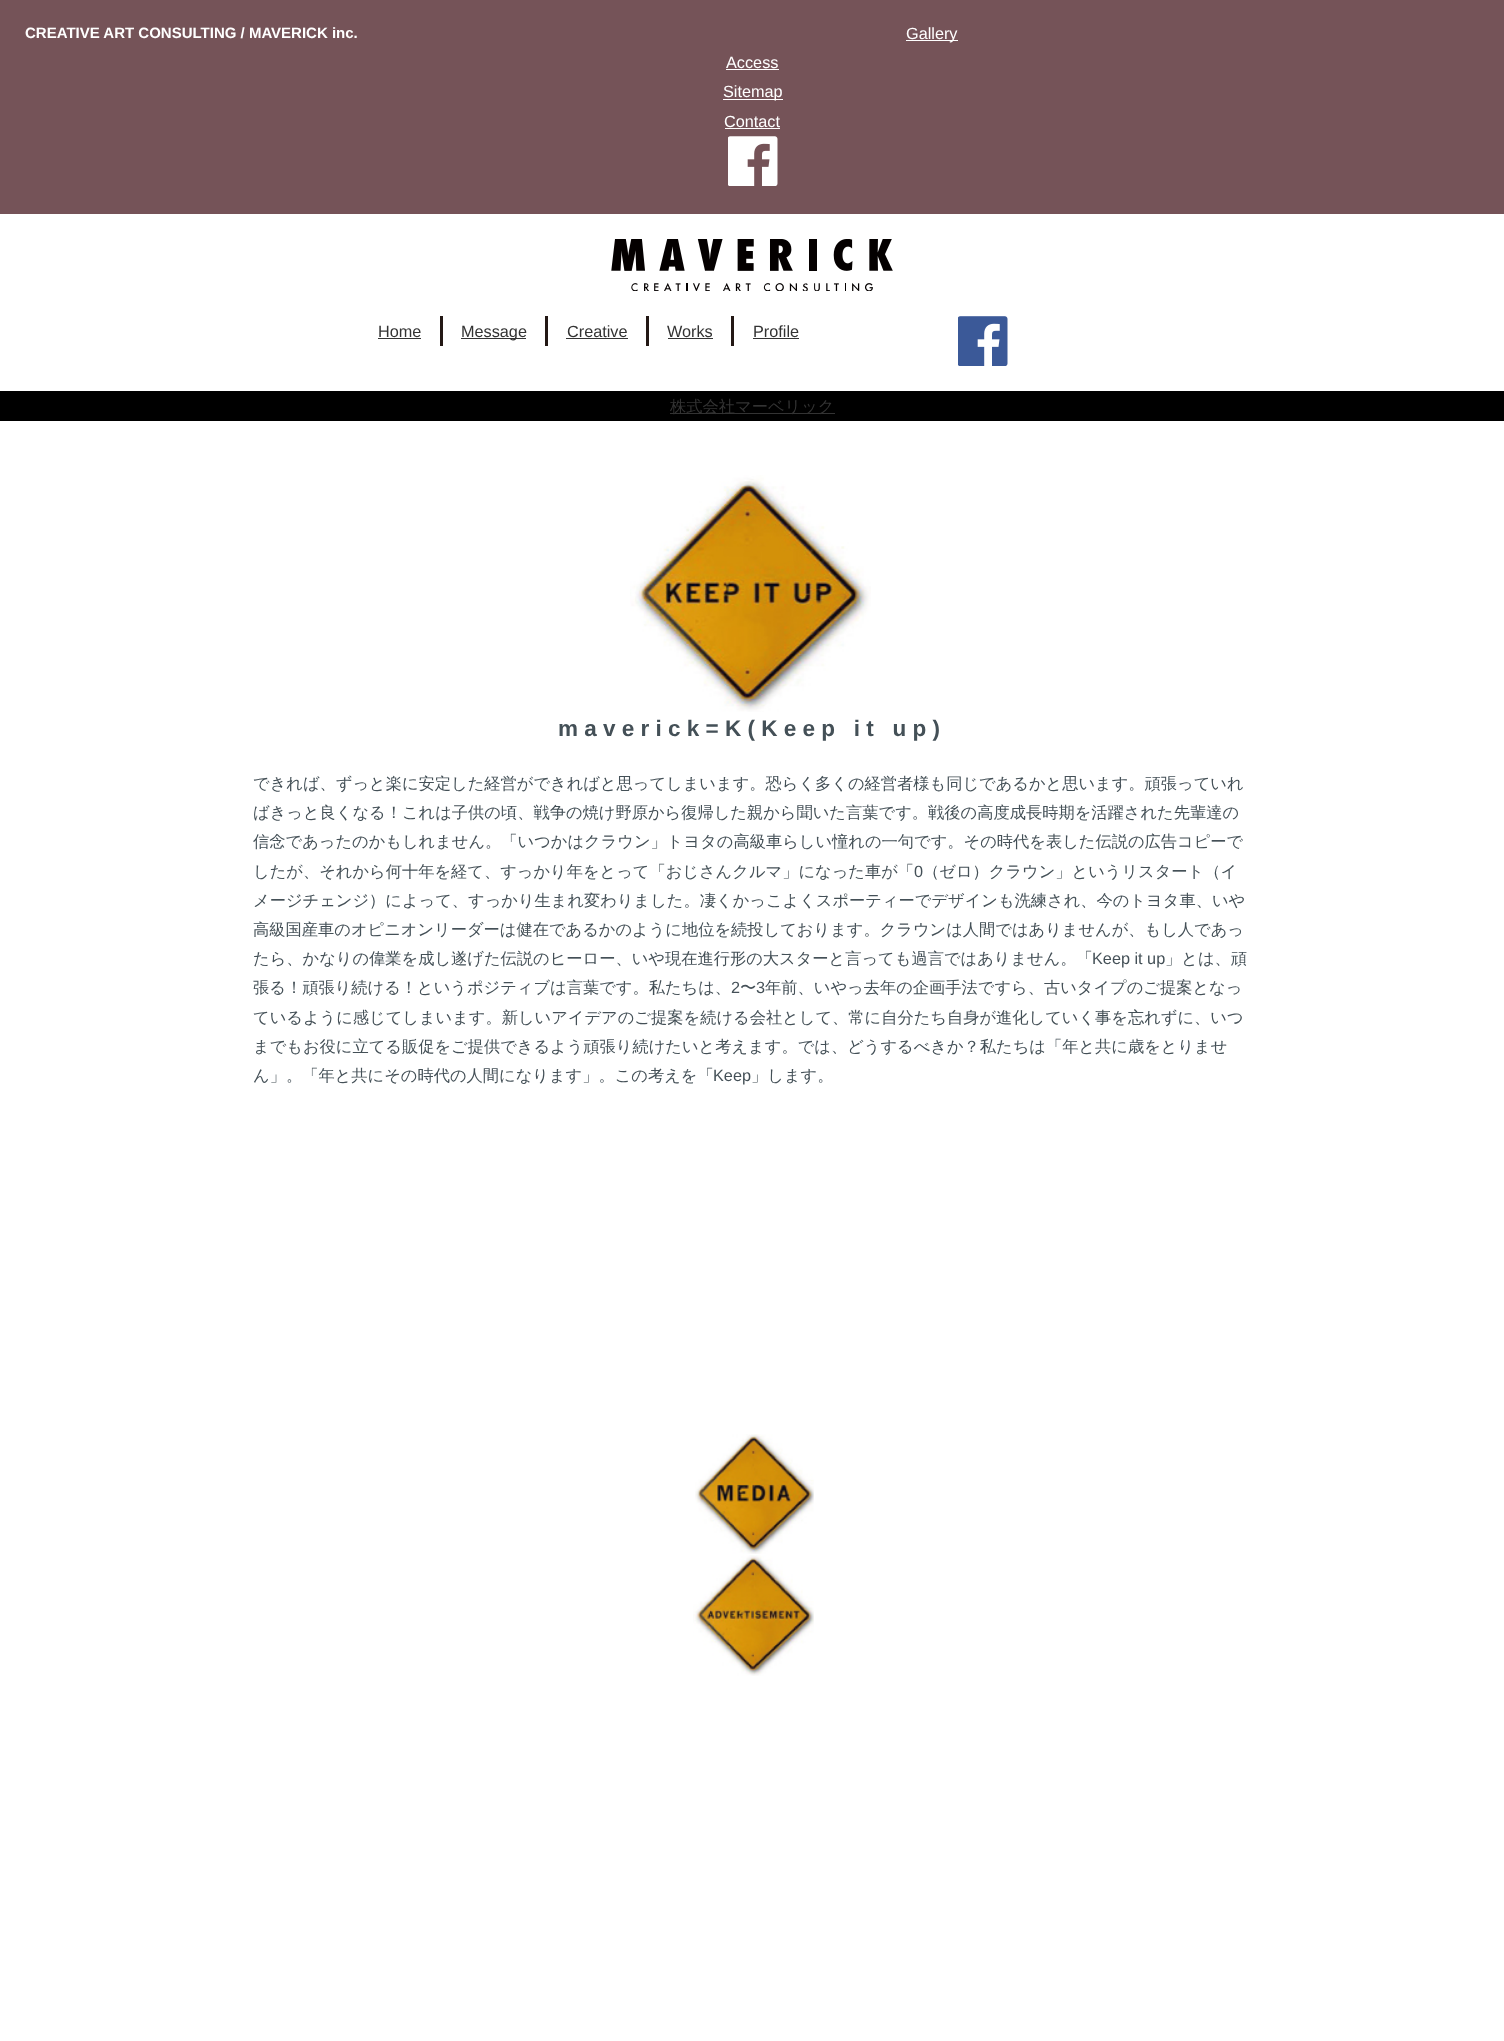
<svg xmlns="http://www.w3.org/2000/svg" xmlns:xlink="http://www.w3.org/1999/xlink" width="1504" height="2041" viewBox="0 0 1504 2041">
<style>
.cls-1{font:bold 15px Liberation Sans;fill:#ffffff}
.cls-2{font:16.25px Liberation Sans;fill:#ffffff}
.cls-3{font:16.25px Liberation Sans;fill:#333333}
.cls-4{font:500 16.25px WenQuanYi Zen Hei;fill:#333333}
.cls-5{font:bold 22.5px Liberation Sans;letter-spacing:6.25px;fill:#445057}
.cls-6{font:500 16.25px WenQuanYi Zen Hei;fill:#445057}
.cls-7{font:16.25px Liberation Sans;fill:#445057}
</style>
<rect width="100%" height="100%" fill="#ffffff"/>
<rect fill="#755358" x="0" y="0" width="1504" height="214"/>
<rect fill="#ffffff" x="906" y="40" width="52" height="1"/>
<rect fill="#ffffff" x="726" y="69" width="53" height="1"/>
<rect fill="#ffffff" x="723" y="99" width="60" height="1"/>
<rect fill="#ffffff" x="725" y="128" width="55" height="1"/>
<image xlink:href="image0.png" x="728" y="136" width="50" height="50"/>
<image xlink:href="image1.png" x="611" y="239" width="282" height="52"/>
<rect fill="#231815" x="440" y="316" width="3" height="30"/>
<rect fill="#333333" x="378" y="338" width="43" height="1"/>
<rect fill="#231815" x="545" y="316" width="3" height="30"/>
<rect fill="#333333" x="461" y="338" width="65" height="1"/>
<rect fill="#231815" x="646" y="316" width="3" height="30"/>
<rect fill="#333333" x="566" y="338" width="62" height="1"/>
<rect fill="#231815" x="731" y="316" width="3" height="30"/>
<rect fill="#333333" x="668" y="338" width="45" height="1"/>
<rect fill="#333333" x="753" y="338" width="46" height="1"/>
<image xlink:href="image2.png" x="958" y="316" width="50" height="50"/>
<rect fill="#000000" x="0" y="391" width="1504" height="30"/>
<rect fill="#333333" x="670" y="413" width="165" height="1"/>
<image xlink:href="image3.png" x="630" y="475" width="241" height="237"/>
<image xlink:href="image4.png" x="695" y="1434" width="119" height="120"/>
<image xlink:href="image5.png" x="693" y="1555" width="121" height="121"/>
<text class="cls-1" x="25" y="38">CREATIVE ART CONSULTING / MAVERICK inc.</text>
<text class="cls-2" x="906" y="39">Gallery</text>
<text class="cls-2" x="726" y="68">Access</text>
<text class="cls-2" x="723" y="97">Sitemap</text>
<text class="cls-2" x="724" y="127">Contact</text>
<text class="cls-3" x="378" y="337">Home</text>
<text class="cls-3" x="461" y="337">Message</text>
<text class="cls-3" x="567" y="337">Creative</text>
<text class="cls-3" x="667" y="337">Works</text>
<text class="cls-3" x="753" y="337">Profile</text>
<text class="cls-4" x="670" y="412">株式会社マーベリック</text>
<text class="cls-5" x="558" y="736">maverick=K(Keep it up)</text>
<text class="cls-6"><tspan x="253" y="789">できれば、ずっと楽に安定した経営ができればと思ってしまいます。恐らく多くの経営者様も同じであるかと思います。頑張っていれ</tspan><tspan x="253" y="818">ばきっと良くなる！これは子供の頃、戦争の焼け野原から復帰した親から聞いた言葉です。戦後の高度成長時期を活躍された先輩達の</tspan><tspan x="253" y="847">信念であったのかもしれません。「いつかはクラウン」トヨタの高級車らしい憧れの一句です。その時代を表した伝説の広告コピーで</tspan><tspan x="253" y="877">したが、それから何十年を経て、すっかり年をとって「おじさんクルマ」になった車が「</tspan></text>
<text class="cls-7" x="914" y="877">0</text>
<text class="cls-6" x="923" y="877">（ゼロ）クラウン」というリスタート（イ</text>
<text class="cls-6"><tspan x="253" y="906">メージチェンジ）によって、すっかり生まれ変わりました。凄くかっこよくスポーティーでデザインも洗練され、今のトヨタ車、いや</tspan><tspan x="253" y="935">高級国産車のオピニオンリーダーは健在であるかのように地位を続投しております。クラウンは人間ではありませんが、もし人であっ</tspan><tspan x="253" y="964">たら、かなりの偉業を成し遂げた伝説のヒーロー、いや現在進行形の大スターと言っても過言ではありません。「</tspan></text>
<text class="cls-7" x="1092" y="964">Keep it up</text>
<text class="cls-6" x="1165" y="964">」とは、頑</text>
<text class="cls-6" x="253" y="993">張る！頑張り続ける！というポジティブは言葉です。私たちは、</text>
<text class="cls-7" x="731" y="993">2</text>
<text class="cls-6" x="740" y="993">〜</text>
<text class="cls-7" x="756" y="993">3</text>
<text class="cls-6" x="765" y="993">年前、いやっ去年の企画手法ですら、古いタイプのご提案となっ</text>
<text class="cls-6"><tspan x="253" y="1023">ているように感じてしまいます。新しいアイデアのご提案を続ける会社として、常に自分たち自身が進化していく事を忘れずに、いつ</tspan><tspan x="253" y="1052">までもお役に立てる販促をご提供できるよう頑張り続けたいと考えます。では、どうするべきか？私たちは「年と共に歳をとりませ</tspan><tspan x="253" y="1081">ん」。「年と共にその時代の人間になります」。この考えを「</tspan></text>
<text class="cls-7" x="713" y="1081">Keep</text>
<text class="cls-6" x="751" y="1081">」します。</text>
</svg>
